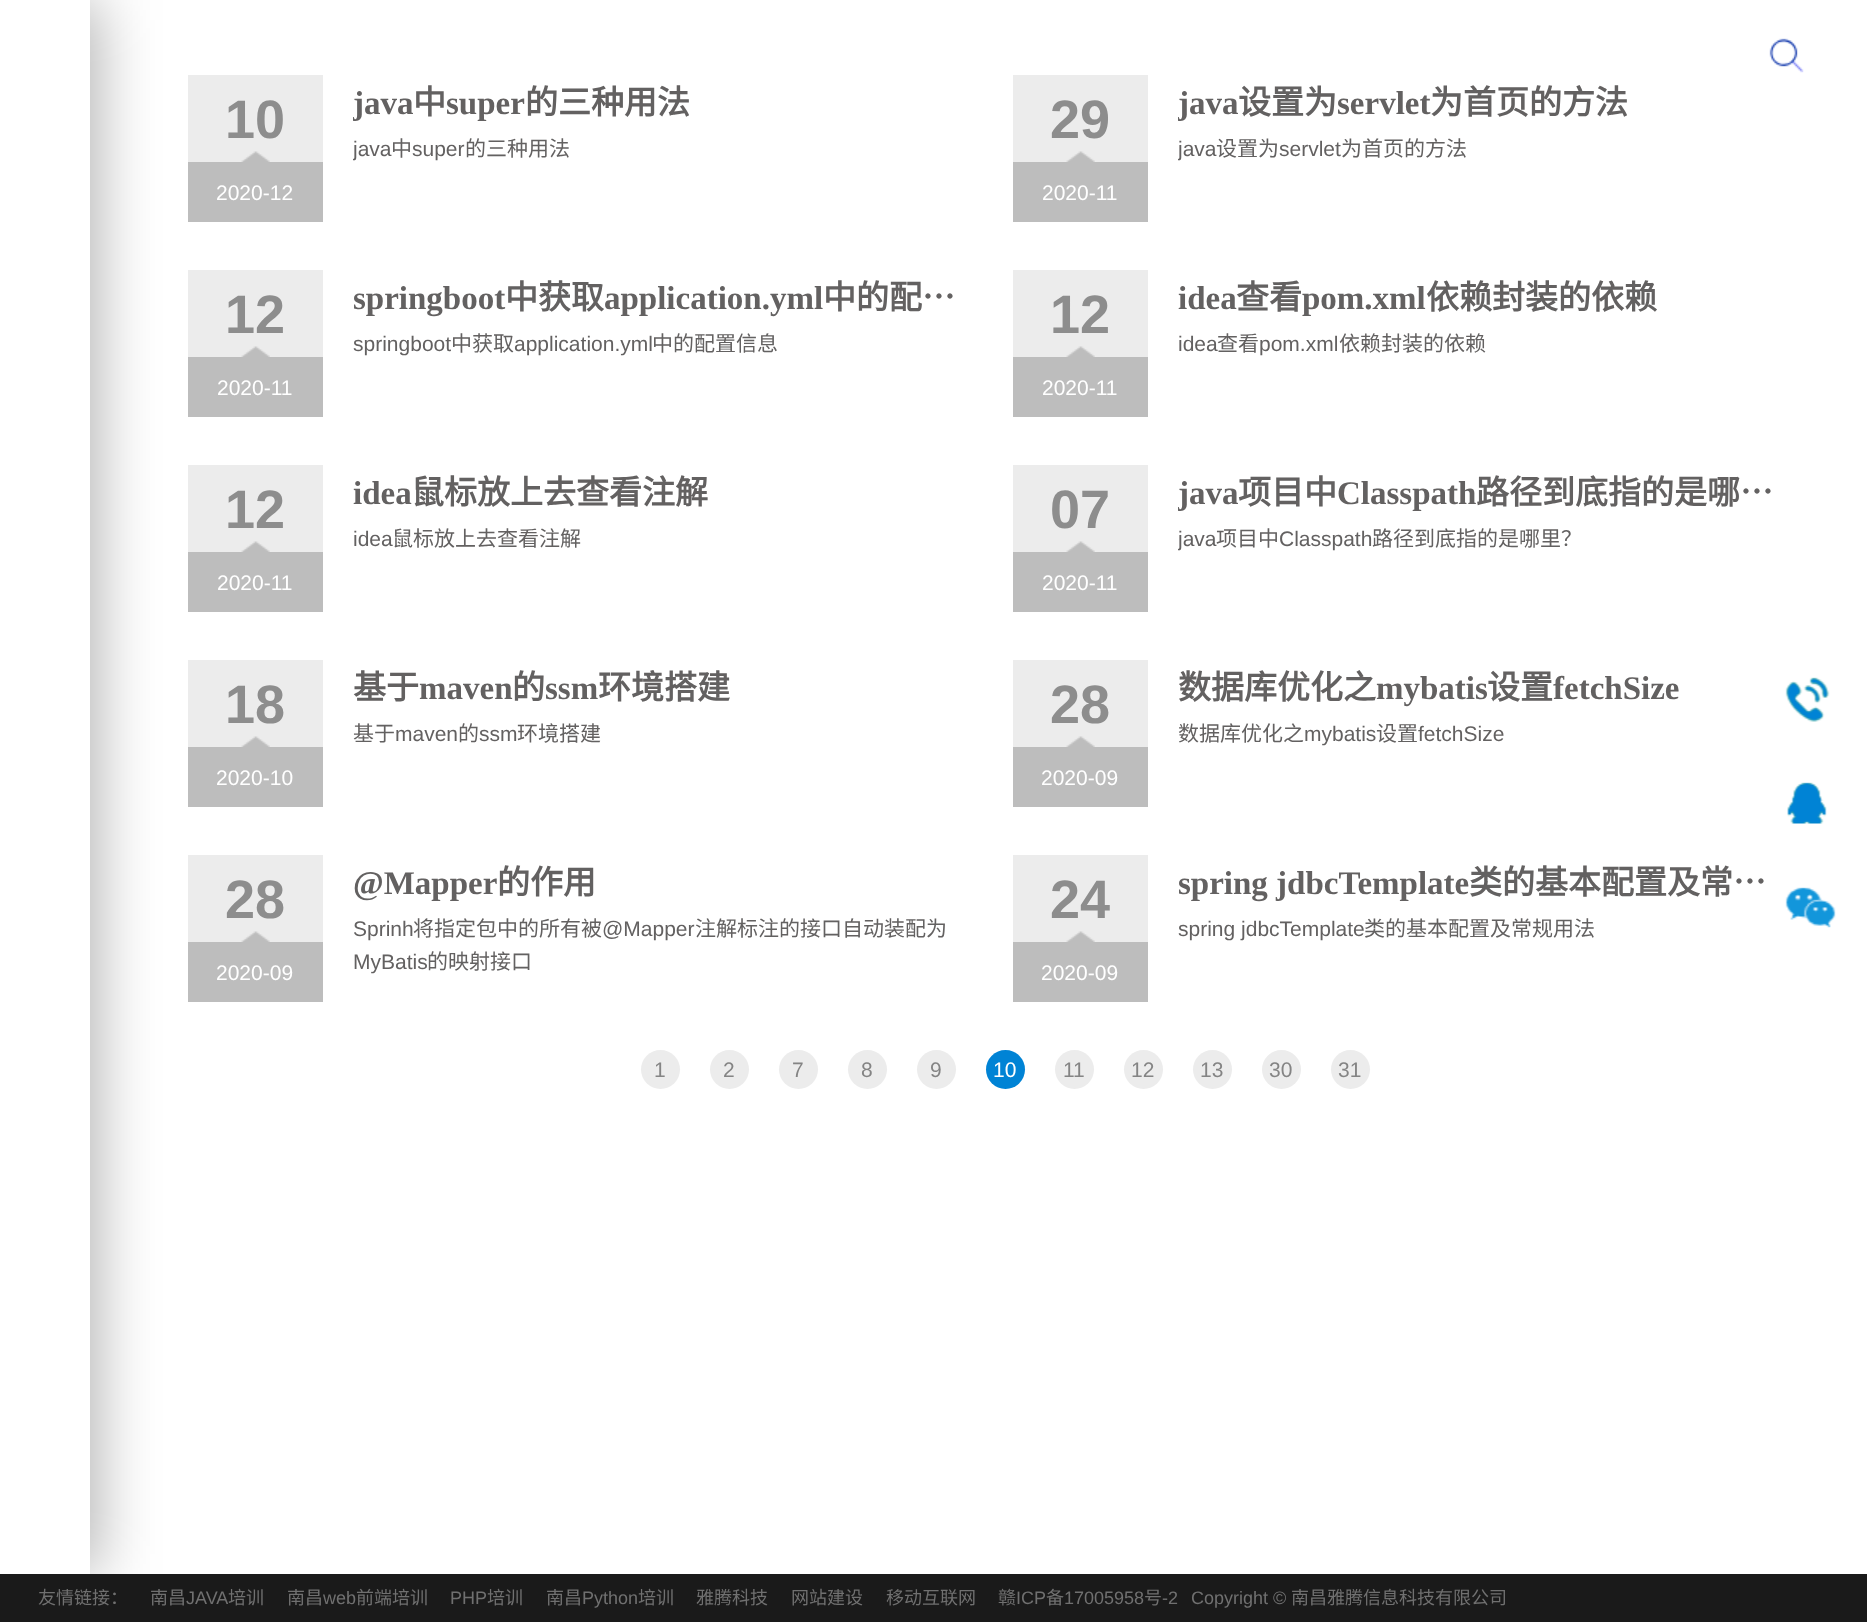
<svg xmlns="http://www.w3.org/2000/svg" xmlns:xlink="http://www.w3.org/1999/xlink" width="1867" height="1622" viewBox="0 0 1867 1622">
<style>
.cls-1{font:bold 54px Liberation Sans;fill:#8d8d8d}
.cls-2{font:21px Liberation Sans;fill:#ffffff}
.cls-3{font:bold 33px Liberation Serif;fill:#636161}
.cls-4{font:bold 33px Noto Sans CJK SC;fill:#636161}
.cls-5{font:21px Liberation Sans;fill:#636161}
.cls-6{font:21px Noto Sans CJK SC;fill:#636161}
.cls-7{font:21px Liberation Sans;fill:#848484}
.cls-8{font:18px Noto Sans CJK SC;fill:#707070}
.cls-9{font:18px Liberation Sans;fill:#707070}
</style>
<defs>
<clipPath id="clip1"><rect x="353" y="75" width="615" height="48"/></clipPath>
<clipPath id="clip2"><rect x="353" y="132" width="615" height="99"/></clipPath>
<clipPath id="clip3"><rect x="1178" y="75" width="615" height="48"/></clipPath>
<clipPath id="clip4"><rect x="1178" y="132" width="615" height="99"/></clipPath>
<clipPath id="clip5"><rect x="1178" y="465" width="615" height="48"/></clipPath>
<clipPath id="clip6"><rect x="1178" y="522" width="615" height="99"/></clipPath>
</defs>
<rect width="100%" height="100%" fill="#ffffff"/>
<rect fill="#ececec" x="188" y="75" width="135" height="87"/>
<rect fill="#bdbdbd" x="188" y="162" width="135" height="60"/>
<rect fill="#ececec" x="188" y="270" width="135" height="87"/>
<rect fill="#bdbdbd" x="188" y="357" width="135" height="60"/>
<rect fill="#ececec" x="188" y="465" width="135" height="87"/>
<rect fill="#bdbdbd" x="188" y="552" width="135" height="60"/>
<rect fill="#ececec" x="188" y="660" width="135" height="87"/>
<rect fill="#bdbdbd" x="188" y="747" width="135" height="60"/>
<rect fill="#ececec" x="188" y="855" width="135" height="87"/>
<rect fill="#bdbdbd" x="188" y="942" width="135" height="60"/>
<rect fill="#000000" fill-opacity="0.3" filter="blur(30px)" x="8" y="0" width="90" height="1574"/>
<rect fill="#ffffff" x="0" y="0" width="90" height="1574"/>
<image xlink:href="image0.png" x="1769" y="38" width="35" height="35"/>
<image xlink:href="image1.png" x="241" y="151" width="29" height="11"/>
<rect fill="#ececec" x="1013" y="75" width="135" height="87"/>
<rect fill="#bdbdbd" x="1013" y="162" width="135" height="60"/>
<image xlink:href="image1.png" x="1066" y="151" width="29" height="11"/>
<image xlink:href="image1.png" x="241" y="346" width="29" height="11"/>
<rect fill="#ececec" x="1013" y="270" width="135" height="87"/>
<rect fill="#bdbdbd" x="1013" y="357" width="135" height="60"/>
<image xlink:href="image1.png" x="1066" y="346" width="29" height="11"/>
<image xlink:href="image1.png" x="241" y="541" width="29" height="11"/>
<rect fill="#ececec" x="1013" y="465" width="135" height="87"/>
<rect fill="#bdbdbd" x="1013" y="552" width="135" height="60"/>
<image xlink:href="image1.png" x="1066" y="541" width="29" height="11"/>
<image xlink:href="image1.png" x="241" y="736" width="29" height="11"/>
<rect fill="#ececec" x="1013" y="660" width="135" height="87"/>
<rect fill="#bdbdbd" x="1013" y="747" width="135" height="60"/>
<image xlink:href="image1.png" x="1066" y="736" width="29" height="11"/>
<image xlink:href="image1.png" x="241" y="931" width="29" height="11"/>
<rect fill="#ececec" x="1013" y="855" width="135" height="87"/>
<rect fill="#bdbdbd" x="1013" y="942" width="135" height="60"/>
<image xlink:href="image1.png" x="1066" y="931" width="29" height="11"/>
<circle fill="#ececec" cx="660.5" cy="1069.5" r="19.5"/>
<circle fill="#ececec" cx="729.5" cy="1069.5" r="19.5"/>
<circle fill="#ececec" cx="798.5" cy="1069.5" r="19.5"/>
<circle fill="#ececec" cx="867.5" cy="1069.5" r="19.5"/>
<circle fill="#ececec" cx="936.5" cy="1069.5" r="19.5"/>
<circle fill="#0083d5" cx="1005.5" cy="1069.5" r="19.5"/>
<circle fill="#ececec" cx="1074.5" cy="1069.5" r="19.5"/>
<circle fill="#ececec" cx="1143.5" cy="1069.5" r="19.5"/>
<circle fill="#ececec" cx="1212.5" cy="1069.5" r="19.5"/>
<circle fill="#ececec" cx="1281.5" cy="1069.5" r="19.5"/>
<circle fill="#ececec" cx="1350.5" cy="1069.5" r="19.5"/>
<image xlink:href="image2.png" x="1785" y="677" width="45" height="45"/>
<image xlink:href="image3.png" x="1787" y="782" width="40" height="42"/>
<image xlink:href="image4.png" x="1785" y="887" width="51" height="41"/>
<rect fill="#1a1a1a" x="0" y="1574" width="1867" height="48"/>
<text class="cls-1" x="225" y="138">10</text>
<text class="cls-2" x="216" y="200">2020-12</text>
<g clip-path="url(#clip1)">
<text class="cls-3" x="353" y="114">java</text>
</g>
<text class="cls-4" x="413" y="114">中</text>
<text class="cls-3" x="446" y="114">super</text>
<text class="cls-4" x="525" y="114">的三种用法</text>
<g clip-path="url(#clip2)">
<text class="cls-5" x="353" y="156">java</text>
</g>
<text class="cls-6" x="391" y="156">中</text>
<text class="cls-5" x="412" y="156">super</text>
<text class="cls-6" x="465" y="156">的三种用法</text>
<text class="cls-1" x="1050" y="138">29</text>
<text class="cls-2" x="1042" y="200">2020-11</text>
<g clip-path="url(#clip3)">
<text class="cls-3" x="1178" y="114">java</text>
</g>
<text class="cls-4" x="1238" y="114">设置为</text>
<text class="cls-3" x="1337" y="114">servlet</text>
<text class="cls-4" x="1430" y="114">为首页的方法</text>
<g clip-path="url(#clip4)">
<text class="cls-5" x="1178" y="156">java</text>
</g>
<text class="cls-6" x="1216" y="156">设置为</text>
<text class="cls-5" x="1279" y="156">servlet</text>
<text class="cls-6" x="1341" y="156">为首页的方法</text>
<text class="cls-1" x="225" y="333">12</text>
<text class="cls-2" x="217" y="395">2020-11</text>
<text class="cls-3" x="353" y="309">springboot</text>
<text class="cls-4" x="505" y="309">中获取</text>
<text class="cls-3" x="604" y="309">application.yml</text>
<text class="cls-4" x="823" y="309">中的配…</text>
<text class="cls-5" x="353" y="351">springboot</text>
<text class="cls-6" x="451" y="351">中获取</text>
<text class="cls-5" x="514" y="351">application.yml</text>
<text class="cls-6" x="652" y="351">中的配置信息</text>
<text class="cls-1" x="1050" y="333">12</text>
<text class="cls-2" x="1042" y="395">2020-11</text>
<text class="cls-3" x="1178" y="309">idea</text>
<text class="cls-4" x="1236" y="309">查看</text>
<text class="cls-3" x="1302" y="309">pom.xml</text>
<text class="cls-4" x="1426" y="309">依赖封装的依赖</text>
<text class="cls-5" x="1178" y="351">idea</text>
<text class="cls-6" x="1217" y="351">查看</text>
<text class="cls-5" x="1259" y="351">pom.xml</text>
<text class="cls-6" x="1339" y="351">依赖封装的依赖</text>
<text class="cls-1" x="225" y="528">12</text>
<text class="cls-2" x="217" y="590">2020-11</text>
<text class="cls-3" x="353" y="504">idea</text>
<text class="cls-4" x="411" y="504">鼠标放上去查看注解</text>
<text class="cls-5" x="353" y="546">idea</text>
<text class="cls-6" x="392" y="546">鼠标放上去查看注解</text>
<text class="cls-1" x="1050" y="528">07</text>
<text class="cls-2" x="1042" y="590">2020-11</text>
<g clip-path="url(#clip5)">
<text class="cls-3" x="1178" y="504">java</text>
</g>
<text class="cls-4" x="1238" y="504">项目中</text>
<text class="cls-3" x="1337" y="504">Classpath</text>
<text class="cls-4" x="1476" y="504">路径到底指的是哪…</text>
<g clip-path="url(#clip6)">
<text class="cls-5" x="1178" y="546">java</text>
</g>
<text class="cls-6" x="1216" y="546">项目中</text>
<text class="cls-5" x="1279" y="546">Classpath</text>
<text class="cls-6" x="1372" y="546">路径到底指的是哪里？</text>
<text class="cls-1" x="225" y="723">18</text>
<text class="cls-2" x="216" y="785">2020-10</text>
<text class="cls-4" x="353" y="699">基于</text>
<text class="cls-3" x="419" y="699">maven</text>
<text class="cls-4" x="512" y="699">的</text>
<text class="cls-3" x="545" y="699">ssm</text>
<text class="cls-4" x="598" y="699">环境搭建</text>
<text class="cls-6" x="353" y="741">基于</text>
<text class="cls-5" x="395" y="741">maven</text>
<text class="cls-6" x="458" y="741">的</text>
<text class="cls-5" x="479" y="741">ssm</text>
<text class="cls-6" x="517" y="741">环境搭建</text>
<text class="cls-1" x="1050" y="723">28</text>
<text class="cls-2" x="1041" y="785">2020-09</text>
<text class="cls-4" x="1178" y="699">数据库优化之</text>
<text class="cls-3" x="1376" y="699">mybatis</text>
<text class="cls-4" x="1487" y="699">设置</text>
<text class="cls-3" x="1553" y="699">fetchSize</text>
<text class="cls-6" x="1178" y="741">数据库优化之</text>
<text class="cls-5" x="1304" y="741">mybatis</text>
<text class="cls-6" x="1376" y="741">设置</text>
<text class="cls-5" x="1418" y="741">fetchSize</text>
<text class="cls-1" x="225" y="918">28</text>
<text class="cls-2" x="216" y="980">2020-09</text>
<text class="cls-3" x="353" y="894">@Mapper</text>
<text class="cls-4" x="497" y="894">的作用</text>
<text class="cls-5" x="353" y="936">Sprinh</text>
<text class="cls-6" x="413" y="936">将指定包中的所有被</text>
<text class="cls-5" x="602" y="936">@Mapper</text>
<text class="cls-6" x="695" y="936">注解标注的接口自动装配为</text>
<text class="cls-5" x="353" y="969">MyBatis</text>
<text class="cls-6" x="427" y="969">的映射接口</text>
<text class="cls-1" x="1050" y="918">24</text>
<text class="cls-2" x="1041" y="980">2020-09</text>
<text class="cls-3" x="1178" y="894">spring jdbcTemplate</text>
<text class="cls-4" x="1469" y="894">类的基本配置及常…</text>
<text class="cls-5" x="1178" y="936">spring jdbcTemplate</text>
<text class="cls-6" x="1364" y="936">类的基本配置及常规用法</text>
<text class="cls-7" x="654" y="1077">1</text>
<text class="cls-7" x="723" y="1077">2</text>
<text class="cls-7" x="792" y="1077">7</text>
<text class="cls-7" x="861" y="1077">8</text>
<text class="cls-7" x="930" y="1077">9</text>
<text class="cls-2" x="993" y="1077">10</text>
<text class="cls-7" x="1063" y="1077">11</text>
<text class="cls-7" x="1131" y="1077">12</text>
<text class="cls-7" x="1200" y="1077">13</text>
<text class="cls-7" x="1269" y="1077">30</text>
<text class="cls-7" x="1338" y="1077">31</text>
<text class="cls-8" x="38" y="1604">友情链接：</text>
<text class="cls-8" x="150" y="1604">南昌</text>
<text class="cls-9" x="186" y="1604">JAVA</text>
<text class="cls-8" x="228" y="1604">培训</text>
<text class="cls-8" x="287" y="1604">南昌</text>
<text class="cls-9" x="323" y="1604">web</text>
<text class="cls-8" x="356" y="1604">前端培训</text>
<text class="cls-9" x="450" y="1604">PHP</text>
<text class="cls-8" x="487" y="1604">培训</text>
<text class="cls-8" x="546" y="1604">南昌</text>
<text class="cls-9" x="582" y="1604">Python</text>
<text class="cls-8" x="638" y="1604">培训</text>
<text class="cls-8" x="696" y="1604">雅腾科技</text>
<text class="cls-8" x="791" y="1604">网站建设</text>
<text class="cls-8" x="886" y="1604">移动互联网</text>
<text class="cls-8" x="998" y="1604">赣</text>
<text class="cls-9" x="1016" y="1604">ICP</text>
<text class="cls-8" x="1046" y="1604">备</text>
<text class="cls-9" x="1064" y="1604">17005958</text>
<text class="cls-8" x="1144" y="1604">号</text>
<text class="cls-9" x="1162" y="1604">-2</text>
<text class="cls-9" x="1191" y="1604">Copyright ©</text>
<text class="cls-8" x="1291" y="1604">南昌雅腾信息科技有限公司</text>
</svg>
